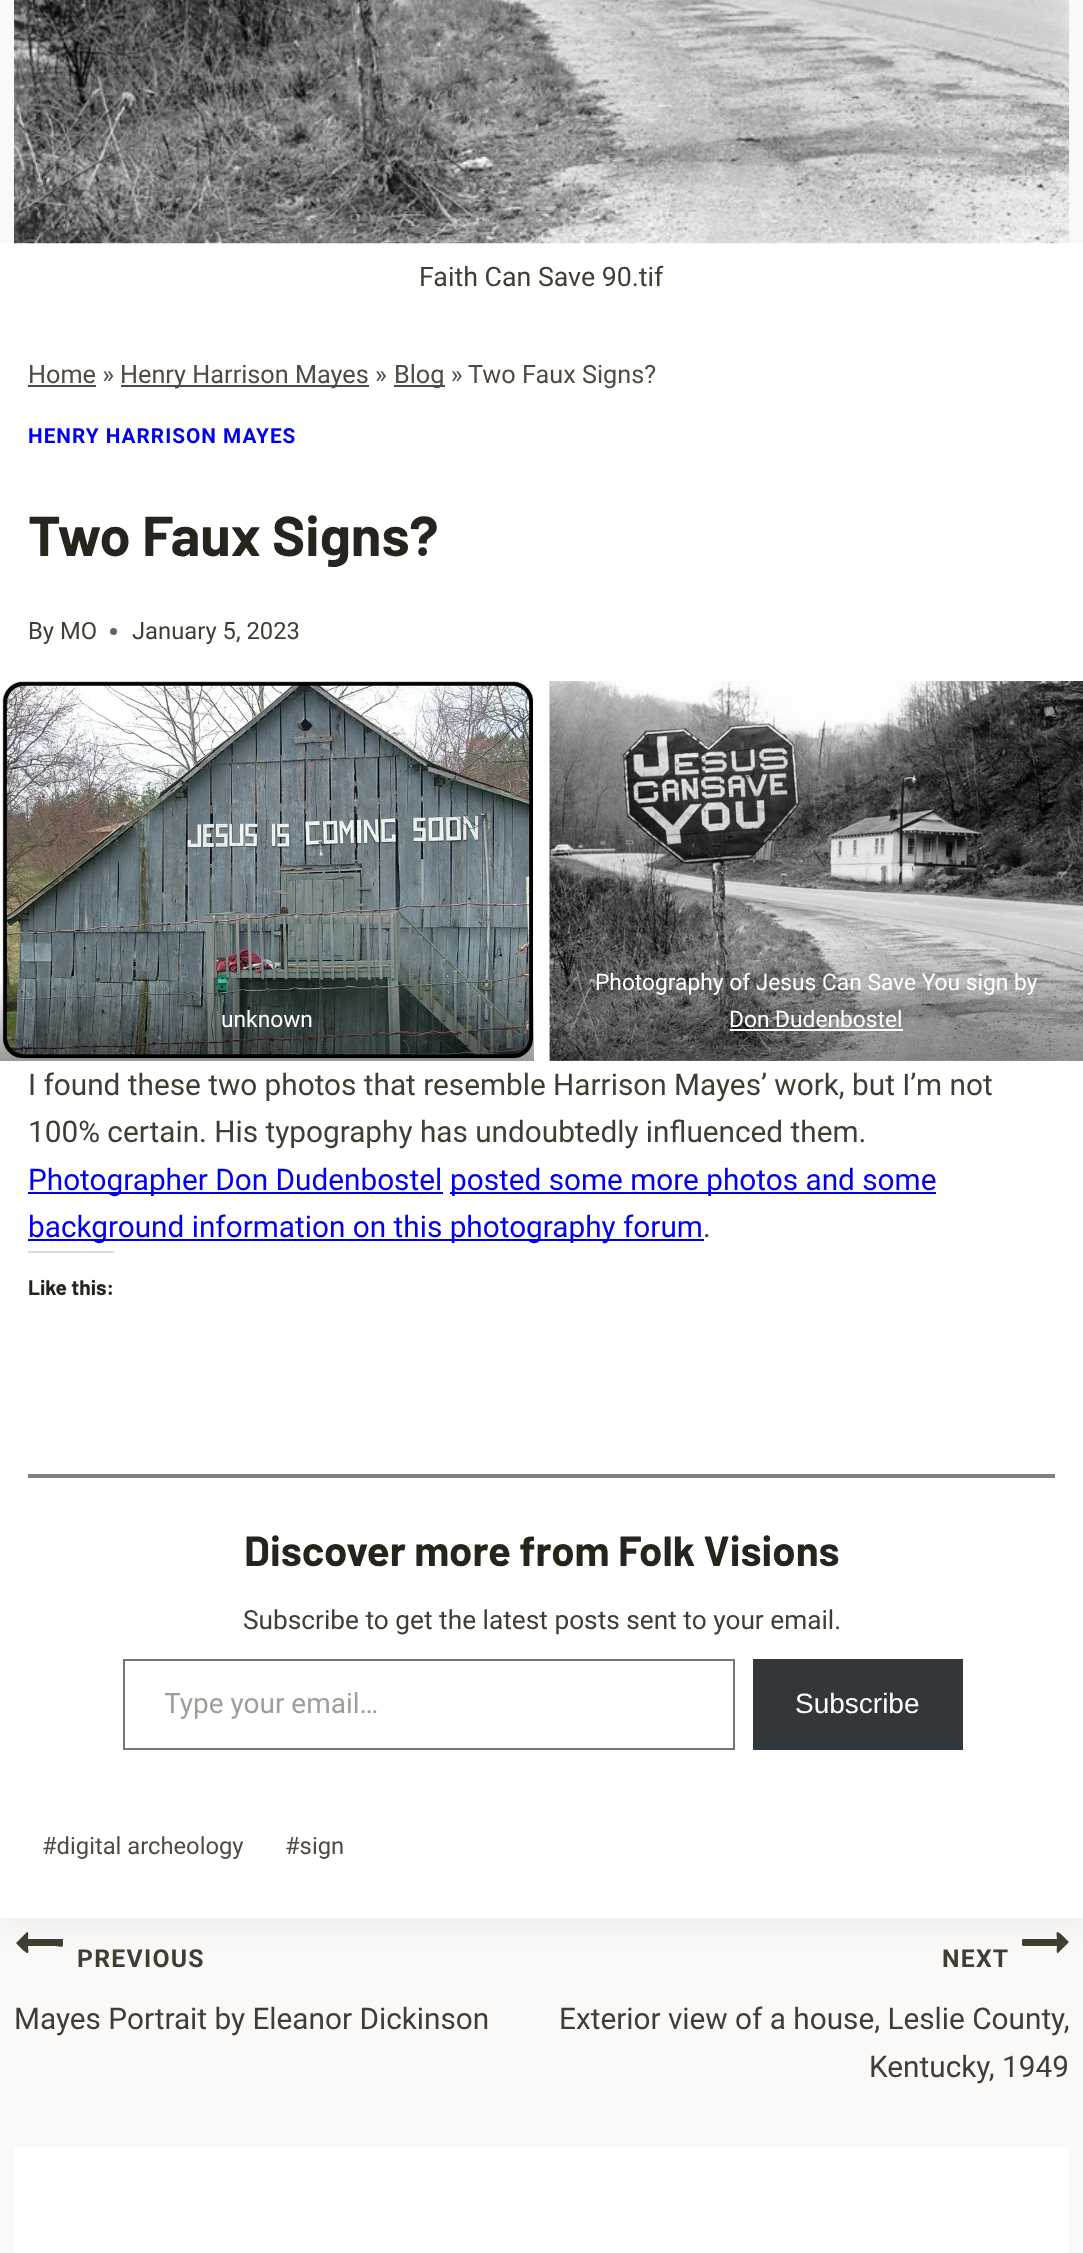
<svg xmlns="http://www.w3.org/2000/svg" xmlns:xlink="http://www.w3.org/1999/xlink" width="1083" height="2253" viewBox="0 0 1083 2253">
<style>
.cls-1{font:26.75px Roboto;fill:#423d33}
.cls-2{font:25.25px Roboto;fill:#504a40}
.cls-3{font:bold 20.75px Roboto;letter-spacing:1px;fill:#0000ee}
.cls-4{font:bold 56px Barlow;fill:#27241d}
.cls-5{font:23.75px Roboto;fill:#423d33}
.cls-6{font:22.75px Roboto;fill:#ffffff}
.cls-7{font:29.75px Roboto;fill:#423d33}
.cls-8{font:29.75px Roboto;fill:#0000ee}
.cls-9{font:bold 21px Barlow;fill:#27241d}
.cls-10{font:bold 42px Barlow;fill:#27241d}
.cls-11{font:26.25px Roboto;fill:#423d33}
.cls-12{font:28px Roboto;fill:#a19e99}
.cls-13{font:28px Liberation Sans;fill:#ffffff}
.cls-14{font:23.75px Roboto;fill:#504a40}
.cls-15{font:bold 24.75px Roboto;letter-spacing:1.25px;fill:#423d33}
</style>
<defs>
<linearGradient id="g1" gradientUnits="userSpaceOnUse" x1="267" y1="1061" x2="267" y2="980"><stop offset="0" stop-color="#000000" stop-opacity="0.4"/><stop offset="1" stop-color="#000000" stop-opacity="0"/></linearGradient>
<linearGradient id="g2" gradientUnits="userSpaceOnUse" x1="816" y1="1061" x2="816" y2="943"><stop offset="0" stop-color="#000000" stop-opacity="0.4"/><stop offset="1" stop-color="#000000" stop-opacity="0"/></linearGradient>
<clipPath id="clip1"><rect x="165" y="1687" width="528" height="33"/></clipPath>
</defs>
<rect width="100%" height="100%" fill="#faf9f7"/>
<rect fill="#ffffff" x="0" y="243" width="1083" height="70"/>
<image xlink:href="image0.png" x="14" y="0" width="1056" height="244"/>
<rect fill="#000000" fill-opacity="0.05" filter="blur(13px)" x="4" y="357" width="1076" height="1570"/>
<rect fill="#ffffff" x="0" y="313" width="1083" height="1605"/>
<rect fill="#504a40" x="28" y="385" width="68" height="2"/>
<rect fill="#504a40" x="121" y="385" width="248" height="2"/>
<rect fill="#504a40" x="394" y="385" width="51" height="2"/>
<circle fill="#68645c" cx="113.5" cy="631.5" r="3.5"/>
<image xlink:href="image1.png" x="2" y="681" width="532" height="378"/>
<rect fill="url(#g1)" x="0" y="984" width="534" height="77"/>
<image xlink:href="image2.png" x="549" y="681" width="534" height="380"/>
<rect fill="url(#g2)" x="550" y="949" width="533" height="112"/>
<rect fill="#ffffff" x="730" y="1029" width="173" height="2"/>
<rect fill="#0000ee" x="28" y="1192" width="415" height="2"/>
<rect fill="#0000ee" x="450" y="1192" width="486" height="2"/>
<rect fill="#0000ee" x="28" y="1239" width="676" height="2"/>
<rect fill="#dcdcde" x="28" y="1251" width="86" height="2"/>
<rect fill="#808080" x="28" y="1474" width="1027" height="4"/>
<rect fill="none" stroke="#767676" stroke-width="2" x="124" y="1660" width="610" height="89"/>
<rect fill="#32373c" x="753" y="1659" width="210" height="91"/>
<path fill="#423d33" d="M63 1940C63 1950 64 1946 51 1946H28C28 1947 29 1952 28 1953C26 1954 16 1943 16 1943L27 1932C29 1931 28 1938 28 1939H63Z"/>
<path fill="#423d33" d="M1069 1942L1058 1953C1056 1954 1057 1947 1057 1946H1023L1022 1945V1940L1023 1939H1057C1057 1938 1056 1933 1057 1932C1059 1931 1069 1942 1069 1942Z"/>
<rect fill="#ffffff" x="14" y="2147" width="1055" height="106"/>
<text class="cls-1" x="419" y="286">Faith Can Save 90.tif</text>
<text class="cls-2" x="28" y="383">Home »</text>
<text class="cls-2" x="120" y="383">Henry Harrison Mayes »</text>
<text class="cls-2" x="394" y="383">Blog »</text>
<text class="cls-2" x="468" y="383">Two Faux Signs?</text>
<text class="cls-3" x="28" y="443">HENRY HARRISON MAYES</text>
<text class="cls-4" x="28" y="556">Two Faux Signs?</text>
<text class="cls-5" x="28" y="639">By</text>
<text class="cls-5" x="60" y="639">MO</text>
<text class="cls-5" x="132" y="639">January 5, 2023</text>
<text class="cls-6" x="221" y="1027">unknown</text>
<text class="cls-6" x="595" y="990">Photography of Jesus Can Save You sign by</text>
<text class="cls-6" x="729" y="1027">Don Dudenbostel</text>
<text class="cls-7"><tspan x="28" y="1095">I found these two photos that resemble Harrison Mayes’ work, but I’m not</tspan><tspan x="28" y="1142">100% certain. His typography has undoubtedly influenced them.</tspan></text>
<text class="cls-8" x="28" y="1190">Photographer Don Dudenbostel</text>
<text class="cls-8" x="450" y="1190">posted some more photos and some</text>
<text class="cls-8" x="28" y="1237">background information on this photography forum</text>
<text class="cls-7" x="703" y="1237">.</text>
<text class="cls-9" x="28" y="1295">Like this:</text>
<text class="cls-10" x="244" y="1566">Discover more from Folk Visions</text>
<text class="cls-11" x="243" y="1629">Subscribe to get the latest posts sent to your email.</text>
<g clip-path="url(#clip1)">
<text class="cls-12" x="164" y="1713">Type your email…</text>
</g>
<text class="cls-13" x="795" y="1713">Subscribe</text>
<text class="cls-14" x="42" y="1854">#digital archeology</text>
<text class="cls-14" x="285" y="1854">#sign</text>
<text class="cls-15" x="77" y="1967">PREVIOUS</text>
<text class="cls-7" x="14" y="2029">Mayes Portrait by Eleanor Dickinson</text>
<text class="cls-15" x="942" y="1967">NEXT</text>
<text class="cls-7" x="559" y="2029">Exterior view of a house, Leslie County,</text>
<text class="cls-7" x="869" y="2077">Kentucky, 1949</text>
</svg>
